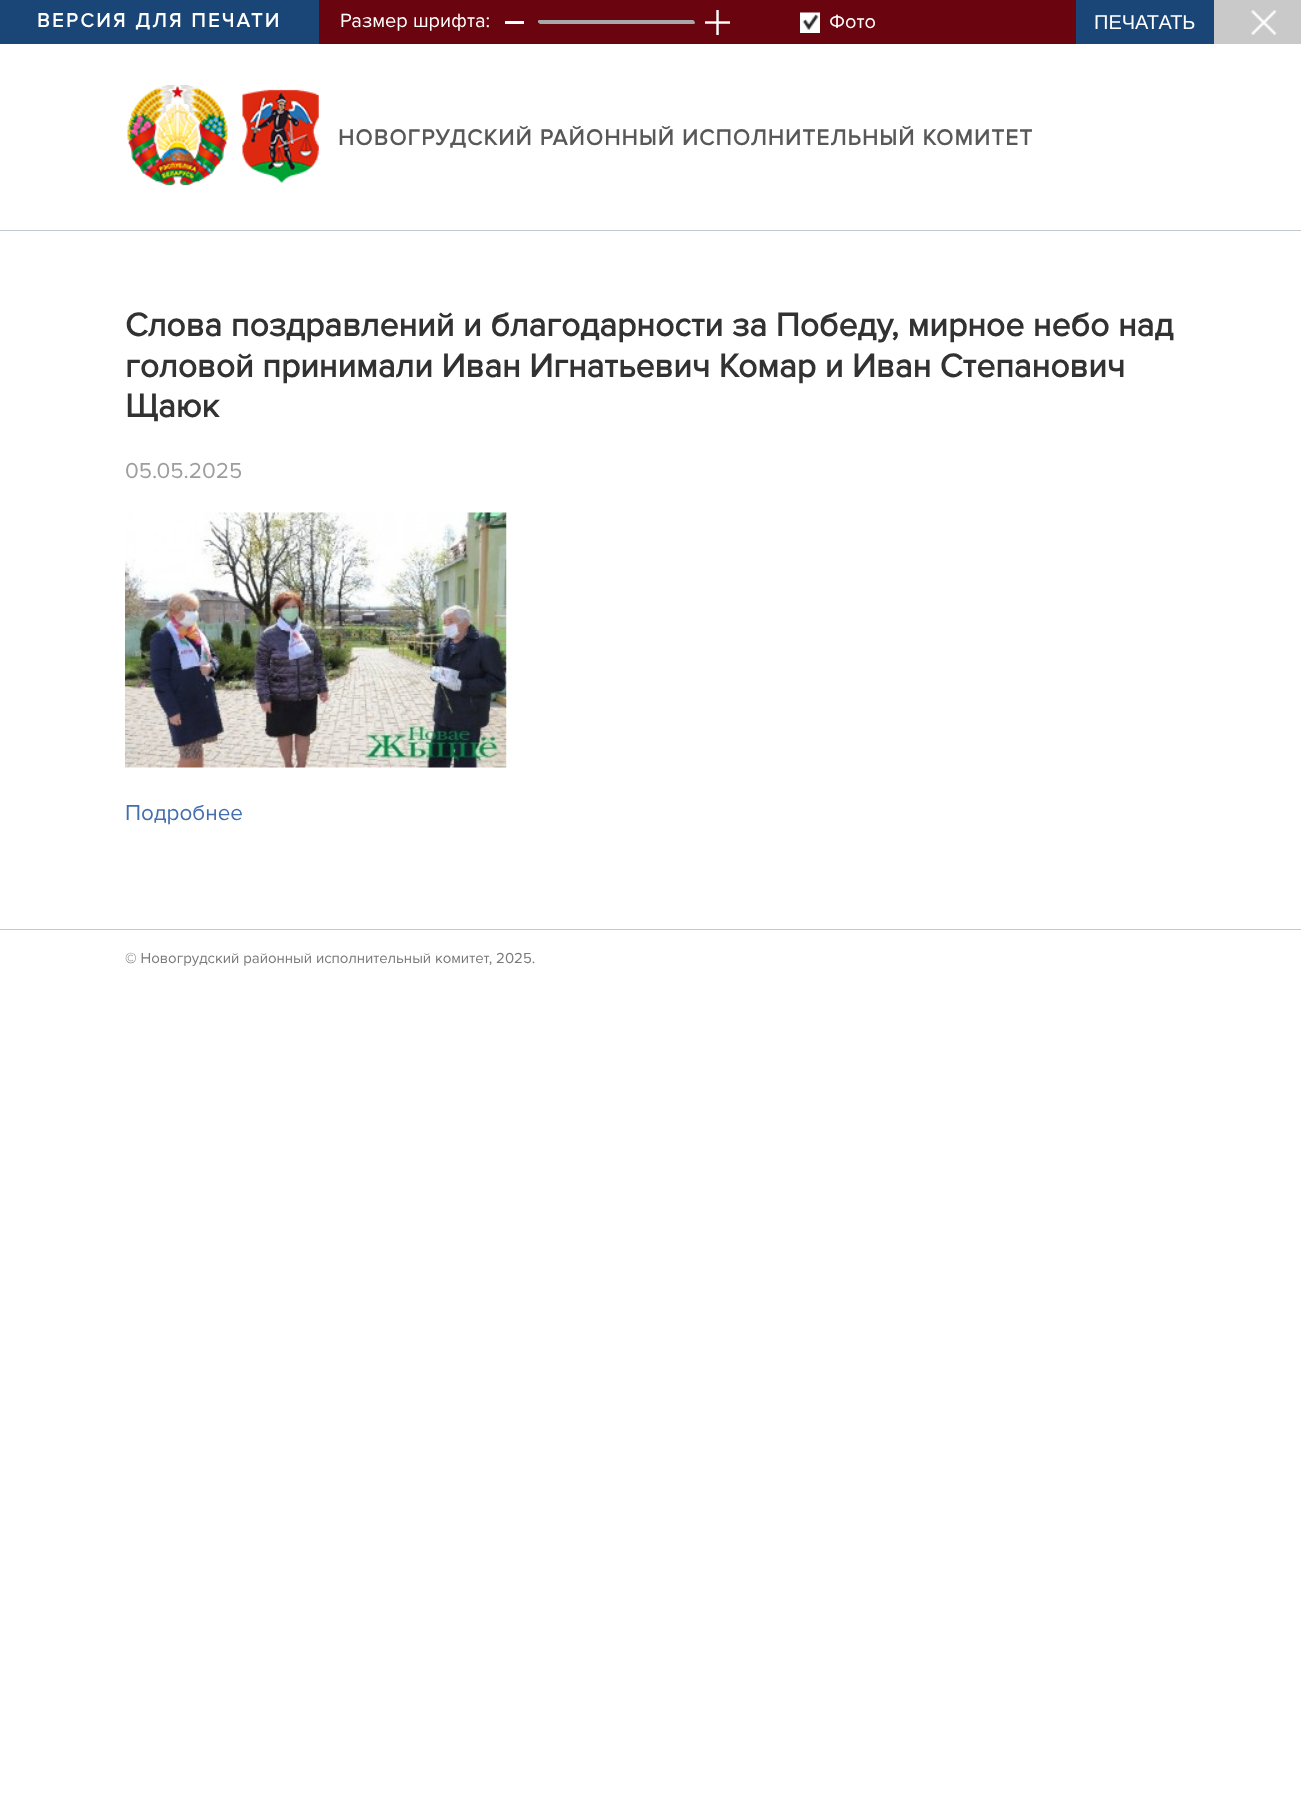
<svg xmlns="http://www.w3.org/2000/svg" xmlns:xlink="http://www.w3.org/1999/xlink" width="1301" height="1818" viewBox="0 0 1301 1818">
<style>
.cls-1{font:bold 20px Proxima Nova;letter-spacing:2.5px;fill:#ffffff}
.cls-2{font:20px Proxima Nova;fill:#ffffff}
.cls-3{font:20px Liberation Sans;fill:#ffffff}
.cls-4{font:bold 22.5px Proxima Nova;letter-spacing:1.25px;fill:#585858}
.cls-5{font:bold 33.75px Proxima Nova;fill:#323232}
.cls-6{font:22.5px Proxima Nova;fill:#9e9e9e}
.cls-7{font:22.5px Proxima Nova;fill:#446faf}
.cls-8{font:15px Proxima Nova;fill:#797979}
</style>
<rect width="100%" height="100%" fill="#ffffff"/>
<rect fill="#6a050f" x="319" y="0" width="757" height="44"/>
<rect fill="#1a4677" x="0" y="0" width="319" height="44"/>
<rect fill="#ffffff" x="505" y="21" width="19" height="3"/>
<rect fill="#a7a7a7" filter="blur(0.5px)" x="538" y="20" width="156" height="3" rx="1.5"/>
<rect fill="#a7a7a7" filter="blur(0.5px)" x="539" y="21" width="156" height="3" rx="1.5"/>
<rect fill="#a7a7a7" x="538" y="20" width="156" height="3" rx="1.5"/>
<image xlink:href="image0.png" x="705" y="10" width="25" height="25"/>
<image xlink:href="image1.png" x="800" y="12" width="20" height="20"/>
<rect fill="none" stroke="#ffffff" x="800.5" y="13.5" width="19" height="19"/>
<rect fill="#1a4677" x="1076" y="0" width="138" height="44"/>
<rect fill="#c9c9c9" x="1214" y="0" width="87" height="44"/>
<image xlink:href="image2.png" x="1251" y="10" width="26" height="25"/>
<rect fill="#c2cacd" x="0" y="230" width="1301" height="1"/>
<image xlink:href="image3.png" x="127" y="85" width="101" height="101"/>
<image xlink:href="image4.png" x="242" y="89" width="77" height="94"/>
<image xlink:href="image5.png" x="125" y="512" width="382" height="256"/>
<rect fill="#c2cacd" x="0" y="929" width="1301" height="1"/>
<text class="cls-1" x="37" y="27">ВЕРСИЯ ДЛЯ ПЕЧАТИ</text>
<text class="cls-2" x="340" y="27">Размер шрифта:</text>
<text class="cls-2" x="829" y="28">Фото</text>
<text class="cls-3" x="1094" y="29">ПЕЧАТАТЬ</text>
<text class="cls-4" x="338" y="145">НОВОГРУДСКИЙ РАЙОННЫЙ ИСПОЛНИТЕЛЬНЫЙ КОМИТЕТ</text>
<text class="cls-5"><tspan x="125" y="336">Слова поздравлений и благодарности за Победу, мирное небо над</tspan><tspan x="125" y="377">головой принимали Иван Игнатьевич Комар и Иван Степанович</tspan><tspan x="125" y="417">Щаюк</tspan></text>
<text class="cls-6" x="125" y="478">05.05.2025</text>
<text class="cls-7" x="125" y="820">Подробнее</text>
<text class="cls-8" x="125" y="963">© Новогрудский районный исполнительный комитет, 2025.</text>
</svg>
